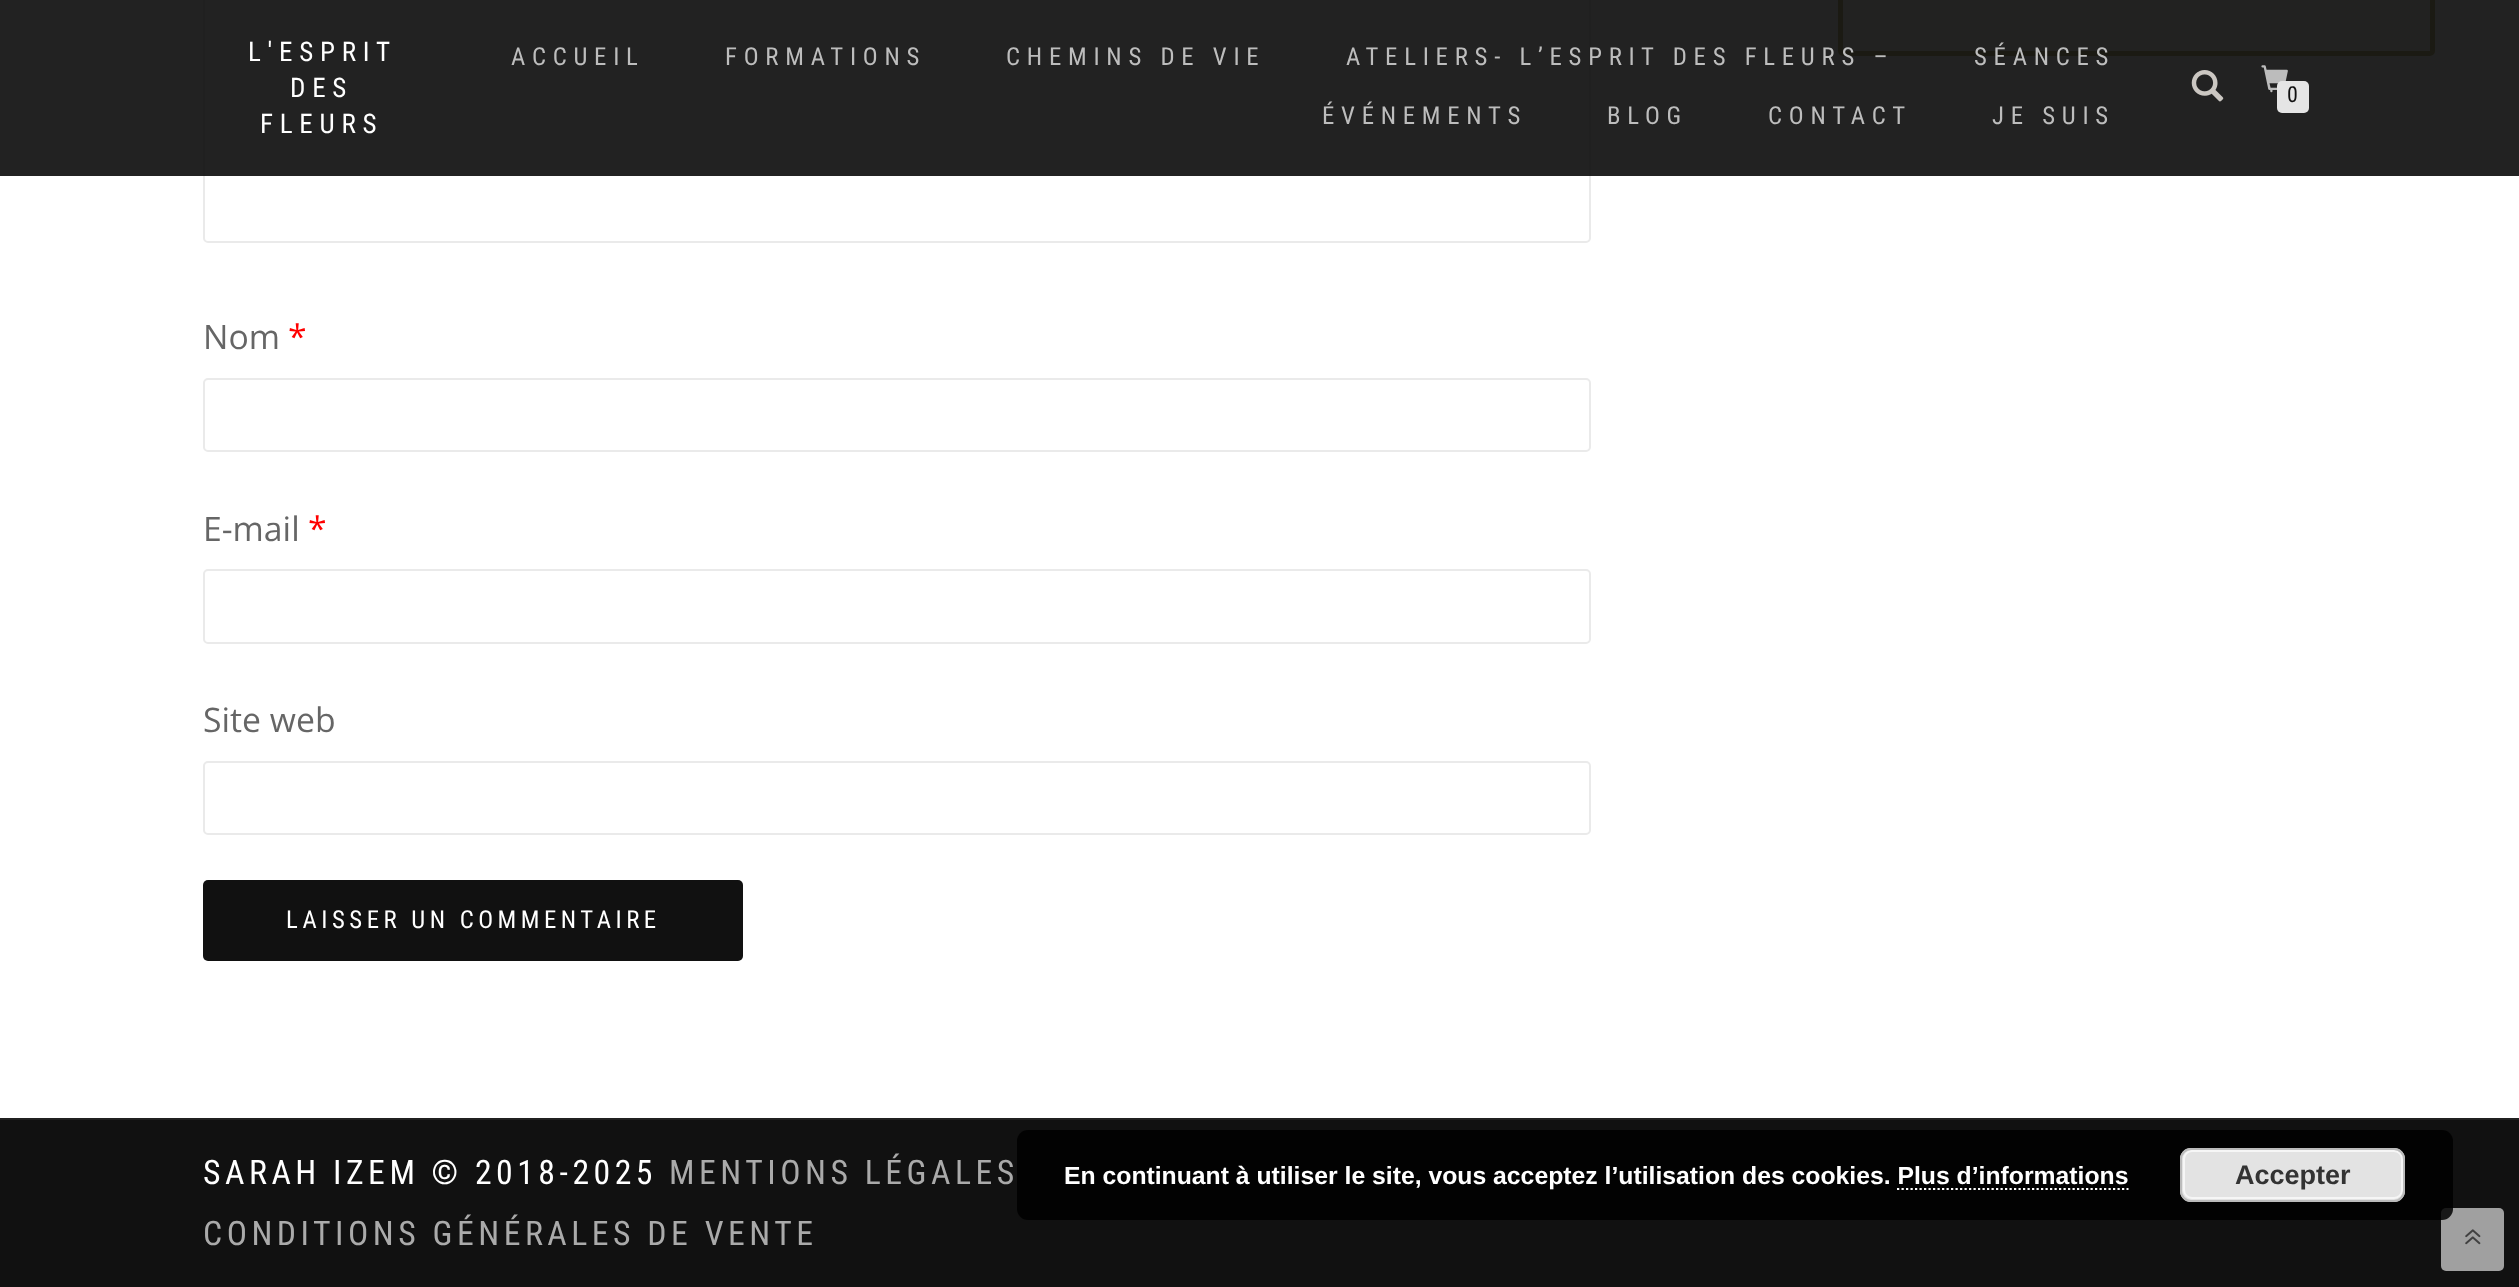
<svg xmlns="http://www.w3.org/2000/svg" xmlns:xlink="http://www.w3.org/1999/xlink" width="2519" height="1287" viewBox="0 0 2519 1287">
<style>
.cls-1{font:27px Roboto Condensed;letter-spacing:6.75px;fill:#ffffff}
.cls-2{font:24.75px Roboto Condensed;letter-spacing:6.75px;fill:#bdbdbd}
.cls-3{font:22px Roboto Condensed;fill:#111111}
.cls-4{font:33.75px Open Sans;fill:#666666}
.cls-5{font:33.75px Open Sans;fill:#ff0000}
.cls-6{font:24.75px Roboto Condensed;letter-spacing:4.5px;fill:#ffffff}
.cls-7{font:33.75px Roboto Condensed;letter-spacing:4.5px;fill:#ffffff}
.cls-8{font:33.75px Roboto Condensed;letter-spacing:4.5px;fill:#aaaaaa}
.cls-9{font:bold 24.75px Liberation Sans;fill:#ffffff}
.cls-10{font:bold 27px Liberation Sans;fill:#333333}
</style>
<rect width="100%" height="100%" fill="#ffffff"/>
<rect fill="#faf9f2" stroke="#b7b167" stroke-width="5" x="1840.5" y="-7.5" width="592" height="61" rx="2.5"/>
<rect fill="none" stroke="#eaeaea" stroke-width="2" x="204" y="-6" width="1386" height="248" rx="4"/>
<rect fill="#0a0a0a" fill-opacity="0.9" x="0" y="0" width="2519" height="176"/>
<image xlink:href="image0.png" x="2191" y="70" width="33" height="32"/>
<image xlink:href="image1.png" x="2261" y="65" width="27" height="28"/>
<rect fill="#e5e5e5" x="2277" y="81" width="32" height="32" rx="5"/>
<rect fill="none" stroke="#eaeaea" stroke-width="2" x="204" y="379" width="1386" height="72" rx="4"/>
<rect fill="none" stroke="#eaeaea" stroke-width="2" x="204" y="570" width="1386" height="73" rx="4"/>
<rect fill="none" stroke="#eaeaea" stroke-width="2" x="204" y="762" width="1386" height="72" rx="4"/>
<rect fill="#111111" x="203" y="880" width="540" height="81" rx="5"/>
<rect fill="#111111" x="0" y="1120" width="2519" height="167"/>
<rect fill="#202020" x="0" y="1118" width="2519" height="2"/>
<rect fill="#a0a0a0" x="2441" y="1208" width="63" height="63" rx="5"/>
<rect fill="#000000" fill-opacity="0.85" x="1017" y="1130" width="1436" height="90" rx="11"/>
<rect fill="#e3e3e3" x="2180" y="1148" width="225" height="54" rx="11"/>
<rect fill="none" stroke="#f6f6f6" stroke-width="2" x="2184" y="1151" width="218" height="47" rx="8"/>
<rect fill="none" stroke="#bbbbbb" stroke-width="2" x="2181" y="1149" width="223" height="52" rx="10"/>
<path fill="none" stroke="#ffffff" stroke-width="2.2" stroke-dasharray="2.25 2.25" d="M1897 1189H2128.5"/>
<image xlink:href="image2.png" x="2465" y="1229" width="16" height="16"/>
<text class="cls-1" x="248" y="61">L'ESPRIT</text>
<text class="cls-1" x="290" y="97">DES</text>
<text class="cls-1" x="260" y="133">FLEURS</text>
<text class="cls-2" x="511" y="65">ACCUEIL</text>
<text class="cls-2" x="725" y="65">FORMATIONS</text>
<text class="cls-2" x="1006" y="65">CHEMINS DE VIE</text>
<text class="cls-2" x="1346" y="65">ATELIERS- L’ESPRIT DES FLEURS –</text>
<text class="cls-2" x="1974" y="65">SÉANCES</text>
<text class="cls-2" x="1322" y="124">ÉVÉNEMENTS</text>
<text class="cls-2" x="1607" y="124">BLOG</text>
<text class="cls-2" x="1768" y="124">CONTACT</text>
<text class="cls-2" x="1992" y="124">JE SUIS</text>
<text class="cls-3" x="2287" y="102">0</text>
<text class="cls-4" x="203" y="349">Nom</text>
<text class="cls-5" x="288" y="349">*</text>
<text class="cls-4" x="203" y="541">E-mail</text>
<text class="cls-5" x="308" y="541">*</text>
<text class="cls-4" x="203" y="732">Site web</text>
<text class="cls-6" x="286" y="928">LAISSER UN COMMENTAIRE</text>
<text class="cls-7" x="203" y="1184">SARAH IZEM © 2018-2025</text>
<text class="cls-8" x="669" y="1184">MENTIONS LÉGALES</text>
<text class="cls-8" x="203" y="1245">CONDITIONS GÉNÉRALES DE VENTE</text>
<text class="cls-9" x="1064" y="1184">En continuant à utiliser le site, vous acceptez l’utilisation des cookies. Plus d’informations</text>
<text class="cls-10" x="2235" y="1184">Accepter</text>
</svg>
